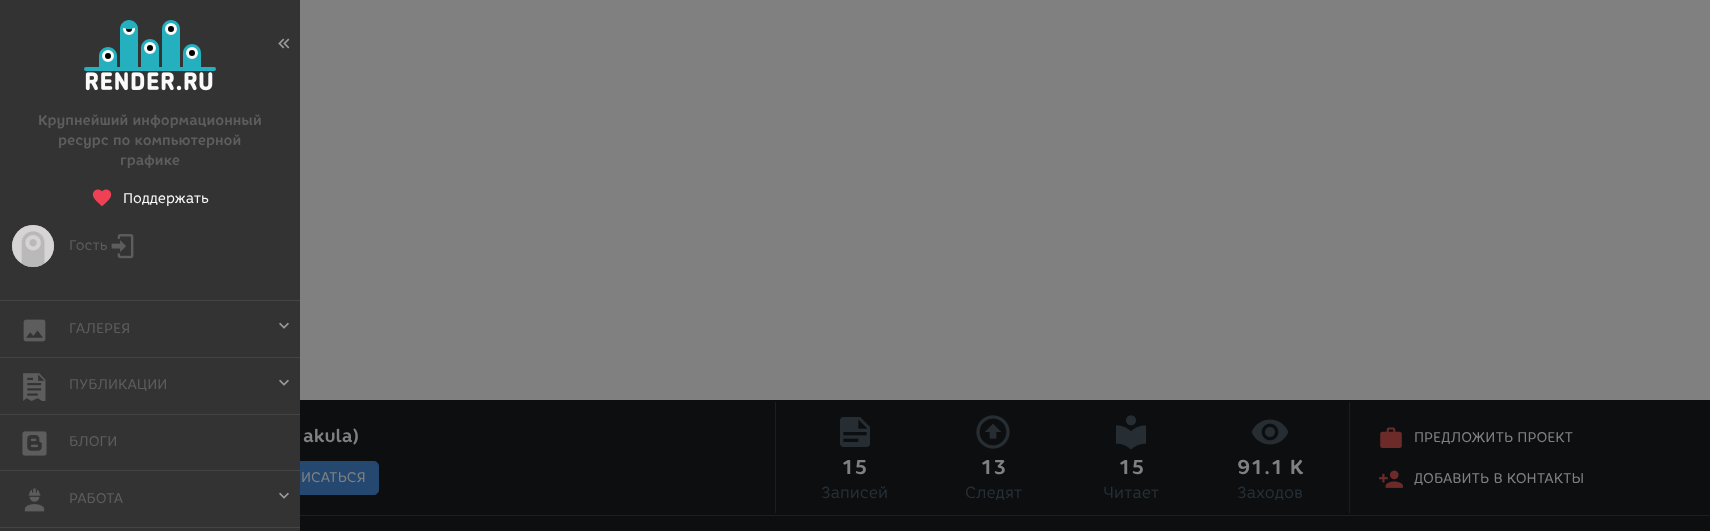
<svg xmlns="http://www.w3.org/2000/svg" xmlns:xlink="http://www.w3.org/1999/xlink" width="1710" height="531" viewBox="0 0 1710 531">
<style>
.cls-1{font:bold 14px 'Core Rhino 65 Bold';fill:#5d5d5d}
.cls-2{font:14px 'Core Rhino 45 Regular';fill:#fafafa}
.cls-3{font:14px 'Core Rhino 45 Regular';fill:#5d5d5d}
.cls-4{font:bold 18px 'Core Rhino 65 Bold';fill:#808080}
.cls-5{font:14px 'Core Rhino 45 Regular';fill:#808080}
.cls-6{font:bold 20px 'Core Rhino 65 Bold';fill:#808080}
.cls-7{font:16px 'Core Rhino 45 Regular';fill:#262f35}
</style>
<rect width="100%" height="100%" fill="#808080"/>
<rect fill="#0c0e10" x="300" y="400" width="1410" height="115"/>
<rect fill="#254871" stroke="#254871" x="223.5" y="461.5" width="155" height="33" rx="4.5"/>
<rect fill="#333333" x="0" y="0" width="300" height="531"/>
<image xlink:href="image0.png" x="278" y="38" width="12" height="11"/>
<image xlink:href="image1.png" x="85" y="72" width="128" height="19"/>
<rect fill="#24b0bf" x="84" y="67" width="132" height="4" rx="2"/>
<path fill="#24b0bf" d="M108 47C113 47 117 51 117 56V71H99V56C99 51 103 47 108 47Z"/>
<circle fill="#000000" stroke="#fafafa" stroke-width="3" cx="108" cy="56" r="4.5"/>
<path fill="#24b0bf" d="M129 20C134 20 138 24 138 29V71H120V29C120 24 124 20 129 20Z"/>
<circle fill="#000000" stroke="#fafafa" stroke-width="3" cx="129" cy="29" r="4.5"/>
<path fill="#24b0bf" d="M129 22C138.5 22 138.5 29 129 29C119.5 29 119.5 22 129 22Z"/>
<path fill="#24b0bf" d="M150 39C155 39 159 43 159 48V71H141V48C141 43 145 39 150 39Z"/>
<circle fill="#000000" stroke="#fafafa" stroke-width="3" cx="150" cy="48" r="4.5"/>
<path fill="#24b0bf" d="M171 20C176 20 180 24 180 29V71H162V29C162 24 166 20 171 20Z"/>
<circle fill="#000000" stroke="#fafafa" stroke-width="3" cx="171" cy="29" r="4.5"/>
<path fill="#24b0bf" d="M192 44C197 44 201 48 201 53V71H183V53C183 48 187 44 192 44Z"/>
<circle fill="#000000" stroke="#fafafa" stroke-width="3" cx="192" cy="53" r="4.5"/>
<image xlink:href="image2.png" x="92" y="189" width="20" height="18"/>
<circle fill="#aaaaaa" cx="33" cy="246" r="21"/>
<image xlink:href="image3.png" x="12" y="225" width="42" height="42"/>
<image xlink:href="image4.png" x="111" y="234" width="23" height="25"/>
<rect fill="#444444" x="0" y="300" width="300" height="1"/>
<image xlink:href="image5.png" x="23" y="319" width="23" height="23"/>
<image xlink:href="image6.png" x="279" y="322" width="10" height="7"/>
<rect fill="#444444" x="0" y="357" width="300" height="1"/>
<image xlink:href="image7.png" x="23" y="373" width="23" height="28"/>
<image xlink:href="image6.png" x="279" y="379" width="10" height="7"/>
<rect fill="#444444" x="0" y="414" width="300" height="1"/>
<image xlink:href="image8.png" x="22" y="431" width="25" height="25"/>
<rect fill="#444444" x="0" y="470" width="300" height="1"/>
<image xlink:href="image9.png" x="24" y="488" width="21" height="24"/>
<image xlink:href="image6.png" x="279" y="492" width="10" height="7"/>
<rect fill="#444444" x="0" y="527" width="300" height="1"/>
<rect fill="#1c1e1f" x="775" y="402" width="1" height="111"/>
<image xlink:href="image10.png" x="840" y="417" width="30" height="30"/>
<image xlink:href="image11.png" x="976" y="415" width="34" height="34"/>
<image xlink:href="image12.png" x="1116" y="415" width="30" height="35"/>
<image xlink:href="image13.png" x="1251" y="419" width="38" height="26"/>
<rect fill="#1c1e1f" x="1349" y="402" width="1" height="111"/>
<image xlink:href="image14.png" x="1380" y="427" width="22" height="21"/>
<image xlink:href="image15.png" x="1379" y="470" width="24" height="18"/>
<rect fill="#1c1e1f" x="300" y="515" width="1410" height="1"/>
<rect fill="#0c0e10" x="300" y="516" width="1410" height="15"/>
<text class="cls-1" x="38" y="125">Крупнейший информационный</text>
<text class="cls-1" x="58" y="145">ресурс по компьютерной</text>
<text class="cls-1" x="120" y="165">графике</text>
<text class="cls-2" x="123" y="203">Поддержать</text>
<text class="cls-3" x="69" y="250">Гость</text>
<text class="cls-3" x="69" y="333">ГАЛЕРЕЯ</text>
<text class="cls-3" x="69" y="389">ПУБЛИКАЦИИ</text>
<text class="cls-3" x="69" y="446">БЛОГИ</text>
<text class="cls-3" x="69" y="503">РАБОТА</text>
<text class="cls-4" x="303" y="442">akula)</text>
<text class="cls-5" x="301" y="482">ИСАТЬСЯ</text>
<text class="cls-6" x="841" y="474">15</text>
<text class="cls-7" x="821" y="498">Записей</text>
<text class="cls-6" x="980" y="474">13</text>
<text class="cls-7" x="965" y="498">Следят</text>
<text class="cls-6" x="1118" y="474">15</text>
<text class="cls-7" x="1103" y="498">Читает</text>
<text class="cls-6" x="1237" y="474">91.1 K</text>
<text class="cls-7" x="1237" y="498">Заходов</text>
<text class="cls-5" x="1414" y="442">ПРЕДЛОЖИТЬ ПРОЕКТ</text>
<text class="cls-5" x="1414" y="483">ДОБАВИТЬ В КОНТАКТЫ</text>
</svg>
